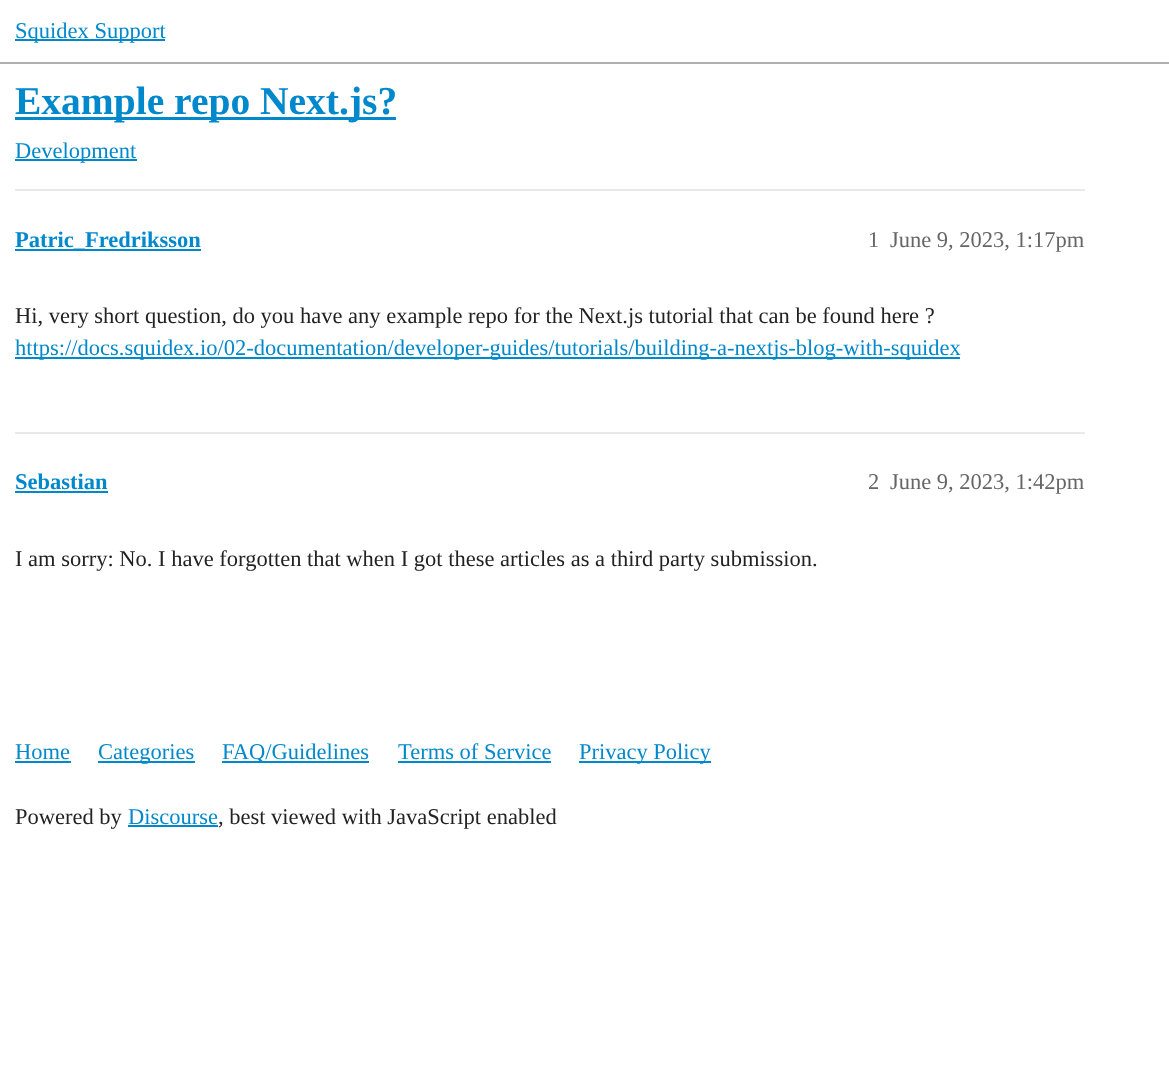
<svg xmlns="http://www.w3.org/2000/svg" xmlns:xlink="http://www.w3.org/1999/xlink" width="1169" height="1083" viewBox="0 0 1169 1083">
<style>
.cls-1{font:22.5px Liberation Serif;fill:#0088cc}
.cls-2{font:bold 39.5px Liberation Serif;fill:#0088cc}
.cls-3{font:bold 22.5px Liberation Serif;fill:#0088cc}
.cls-4{font:22.5px Liberation Serif;fill:#666666}
.cls-5{font:22.5px Liberation Serif;fill:#222222}
</style>
<rect width="100%" height="100%" fill="#ffffff"/>
<rect fill="#afafaf" x="0" y="62" width="1169" height="2"/>
<rect fill="#0088cc" x="15" y="39" width="150" height="2"/>
<rect fill="#0088cc" x="15" y="117" width="381" height="3"/>
<rect fill="#0088cc" x="15" y="159" width="122" height="2"/>
<rect fill="#e9e9e9" x="15" y="189" width="1070" height="2"/>
<rect fill="#0088cc" x="15" y="249" width="186" height="2"/>
<rect fill="#0088cc" x="15" y="357" width="945" height="2"/>
<rect fill="#e9e9e9" x="15" y="432" width="1070" height="2"/>
<rect fill="#0088cc" x="15" y="491" width="93" height="2"/>
<rect fill="#0088cc" x="15" y="761" width="56" height="2"/>
<rect fill="#0088cc" x="98" y="761" width="97" height="2"/>
<rect fill="#0088cc" x="222" y="761" width="147" height="2"/>
<rect fill="#0088cc" x="398" y="761" width="153" height="2"/>
<rect fill="#0088cc" x="579" y="761" width="132" height="2"/>
<rect fill="#0088cc" x="128" y="825" width="90" height="2"/>
<text class="cls-1" x="15" y="38">Squidex Support</text>
<text class="cls-2" x="15" y="114">Example repo Next.js?</text>
<text class="cls-1" x="15" y="158">Development</text>
<text class="cls-3" x="15" y="247">Patric_Fredriksson</text>
<text class="cls-4" x="868" y="247">1</text>
<text class="cls-4" x="890" y="247">June 9, 2023, 1:17pm</text>
<text class="cls-5" x="15" y="323">Hi, very short question, do you have any example repo for the Next.js tutorial that can be found here ?</text>
<text class="cls-1" x="15" y="355">https://docs.squidex.io/02-documentation/developer-guides/tutorials/building-a-nextjs-blog-with-squidex</text>
<text class="cls-3" x="15" y="489">Sebastian</text>
<text class="cls-4" x="868" y="489">2</text>
<text class="cls-4" x="890" y="489">June 9, 2023, 1:42pm</text>
<text class="cls-5" x="15" y="566">I am sorry: No. I have forgotten that when I got these articles as a third party submission.</text>
<text class="cls-1" x="15" y="759">Home</text>
<text class="cls-1" x="98" y="759">Categories</text>
<text class="cls-1" x="222" y="759">FAQ/Guidelines</text>
<text class="cls-1" x="398" y="759">Terms of Service</text>
<text class="cls-1" x="579" y="759">Privacy Policy</text>
<text class="cls-5" x="15" y="824">Powered by</text>
<text class="cls-1" x="128" y="824">Discourse</text>
<text class="cls-5" x="218" y="824">, best viewed with JavaScript enabled</text>
</svg>
